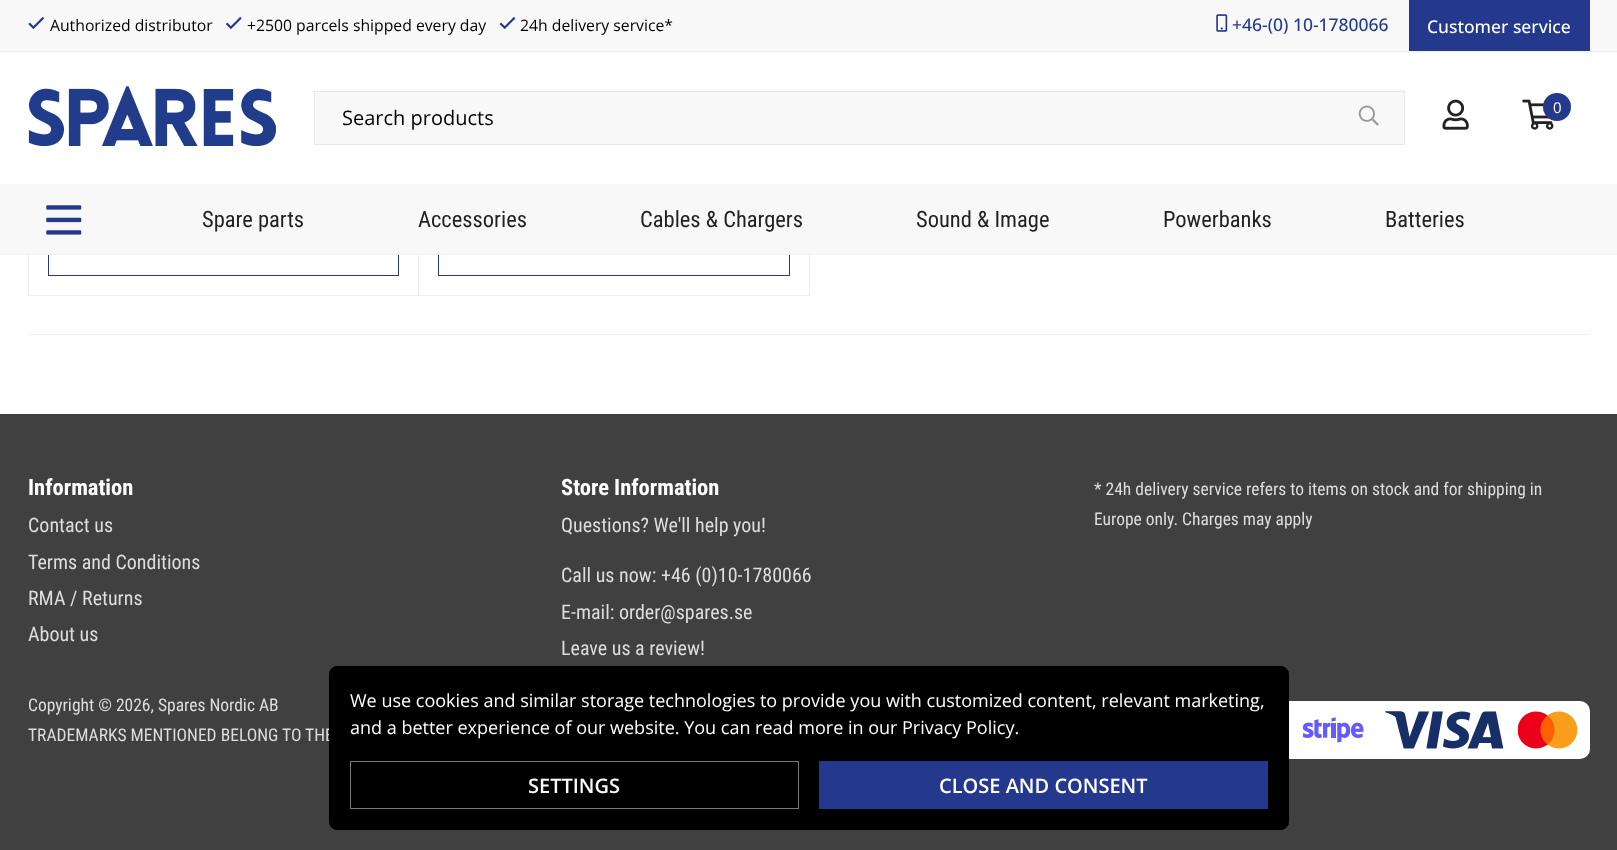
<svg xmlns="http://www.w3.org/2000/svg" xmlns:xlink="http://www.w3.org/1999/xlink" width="1617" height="850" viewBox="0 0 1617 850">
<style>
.cls-1{font:15.75px Open Sans;fill:#000000}
.cls-2{font:500 17.5px Open Sans;fill:#24398e}
.cls-3{font:500 17.5px Open Sans;fill:#ffffff}
.cls-4{font:20px Open Sans;fill:#000000}
.cls-5{font:15px Open Sans;fill:#ffffff}
.cls-6{font:22.5px Roboto Condensed;fill:#222222}
.cls-7{font:bold 22.5px Roboto Condensed;fill:#ffffff}
.cls-8{font:20px Roboto Condensed;fill:#dddddd}
.cls-9{font:17.5px Roboto Condensed;fill:#dddddd}
.cls-10{font:18px Open Sans;fill:#ffffff}
.cls-11{font:600 20px Open Sans;fill:#f8f9fa}
.cls-12{font:600 20px Open Sans;fill:#ffffff}
</style>
<rect width="100%" height="100%" fill="#ffffff"/>
<rect fill="#f8f8f8" x="0" y="0" width="1617" height="53"/>
<rect fill="#f1f1f1" x="0" y="51" width="1617" height="1"/>
<image xlink:href="image0.png" x="28" y="17" width="16" height="12"/>
<image xlink:href="image1.png" x="226" y="17" width="16" height="12"/>
<image xlink:href="image2.png" x="499" y="17" width="17" height="12"/>
<image xlink:href="image3.png" x="1216" y="14" width="12" height="18"/>
<rect fill="#24398e" x="1409" y="0" width="181" height="51"/>
<image xlink:href="image4.png" x="28" y="86" width="248" height="60"/>
<rect fill="#f8f8f8" stroke="#e8e8e8" x="314.5" y="91.5" width="1090" height="53"/>
<image xlink:href="image5.png" x="1358" y="105" width="21" height="21"/>
<image xlink:href="image6.png" x="1442" y="99" width="27" height="31"/>
<image xlink:href="image7.png" x="1522" y="99" width="32" height="31"/>
<circle fill="#24398e" cx="1557" cy="107" r="14"/>
<rect fill="none" stroke="#24398e" x="48.5" y="229.5" width="350" height="46"/>
<rect fill="none" stroke="#24398e" x="438.5" y="229.5" width="351" height="46"/>
<rect fill="#f8f8f8" x="0" y="184" width="1617" height="70"/>
<rect fill="#f1f1f1" x="0" y="254" width="1617" height="1"/>
<image xlink:href="image8.png" x="46" y="205" width="36" height="30"/>
<rect fill="#eeeeee" x="28" y="255" width="1" height="41"/>
<rect fill="#eeeeee" x="418" y="255" width="1" height="41"/>
<rect fill="#eeeeee" x="29" y="295" width="390" height="1"/>
<rect fill="#eeeeee" x="809" y="255" width="1" height="41"/>
<rect fill="#eeeeee" x="419" y="295" width="391" height="1"/>
<rect fill="#eeeeee" x="28" y="334" width="1562" height="1"/>
<rect fill="#404040" x="0" y="414" width="1617" height="436"/>
<rect fill="#ffffff" x="1188" y="701" width="402" height="58" rx="10"/>
<image xlink:href="image9.png" x="1302" y="717" width="62" height="26"/>
<image xlink:href="image10.png" x="1385" y="711" width="119" height="38"/>
<image xlink:href="image11.png" x="1518" y="711" width="60" height="38"/>
<text class="cls-1" x="50" y="31">Authorized distributor</text>
<text class="cls-1" x="247" y="31">+2500 parcels shipped every day</text>
<text class="cls-1" x="520" y="31">24h delivery service*</text>
<text class="cls-2" x="1232" y="31">+46-(0) 10-1780066</text>
<text class="cls-3" x="1427" y="33">Customer service</text>
<text class="cls-4" x="342" y="125">Search products</text>
<text class="cls-5" x="1553" y="113">0</text>
<text class="cls-6" x="202" y="227">Spare parts</text>
<text class="cls-6" x="418" y="227">Accessories</text>
<text class="cls-6" x="640" y="227">Cables &amp; Chargers</text>
<text class="cls-6" x="916" y="227">Sound &amp; Image</text>
<text class="cls-6" x="1163" y="227">Powerbanks</text>
<text class="cls-6" x="1385" y="227">Batteries</text>
<text class="cls-7" x="28" y="495">Information</text>
<text class="cls-8"><tspan x="28" y="532">Contact us</tspan><tspan x="28" y="569">Terms and Conditions</tspan><tspan x="28" y="605">RMA / Returns</tspan><tspan x="28" y="641">About us</tspan></text>
<text class="cls-7" x="561" y="495">Store Information</text>
<text class="cls-8" x="561" y="532">Questions? We'll help you!</text>
<text class="cls-8"><tspan x="561" y="582">Call us now: +46 (0)10-1780066</tspan><tspan x="561" y="619">E-mail: order@spares.se</tspan><tspan x="561" y="655">Leave us a review!</tspan></text>
<text class="cls-9"><tspan x="1094" y="495">* 24h delivery service refers to items on stock and for shipping in</tspan><tspan x="1094" y="525">Europe only. Charges may apply</tspan></text>
<text class="cls-9"><tspan x="28" y="711">Copyright © 2026, Spares Nordic AB</tspan><tspan x="28" y="741">TRADEMARKS MENTIONED BELONG TO THE</tspan></text>
<rect fill="#000000" stroke="#000000" x="329.5" y="666.5" width="959" height="163" rx="7.5"/>
<text class="cls-10"><tspan x="350" y="707">We use cookies and similar storage technologies to provide you with customized content, relevant marketing,</tspan><tspan x="350" y="734">and a better experience of our website. You can read more in our</tspan></text>
<text class="cls-10" x="902" y="734">Privacy Policy.</text>
<rect fill="none" stroke="#787878" x="350.5" y="761.5" width="448" height="47"/>
<text class="cls-11" x="528" y="793">SETTINGS</text>
<rect fill="#24398e" x="819" y="761" width="449" height="48"/>
<text class="cls-12" x="939" y="793">CLOSE AND CONSENT</text>
</svg>
